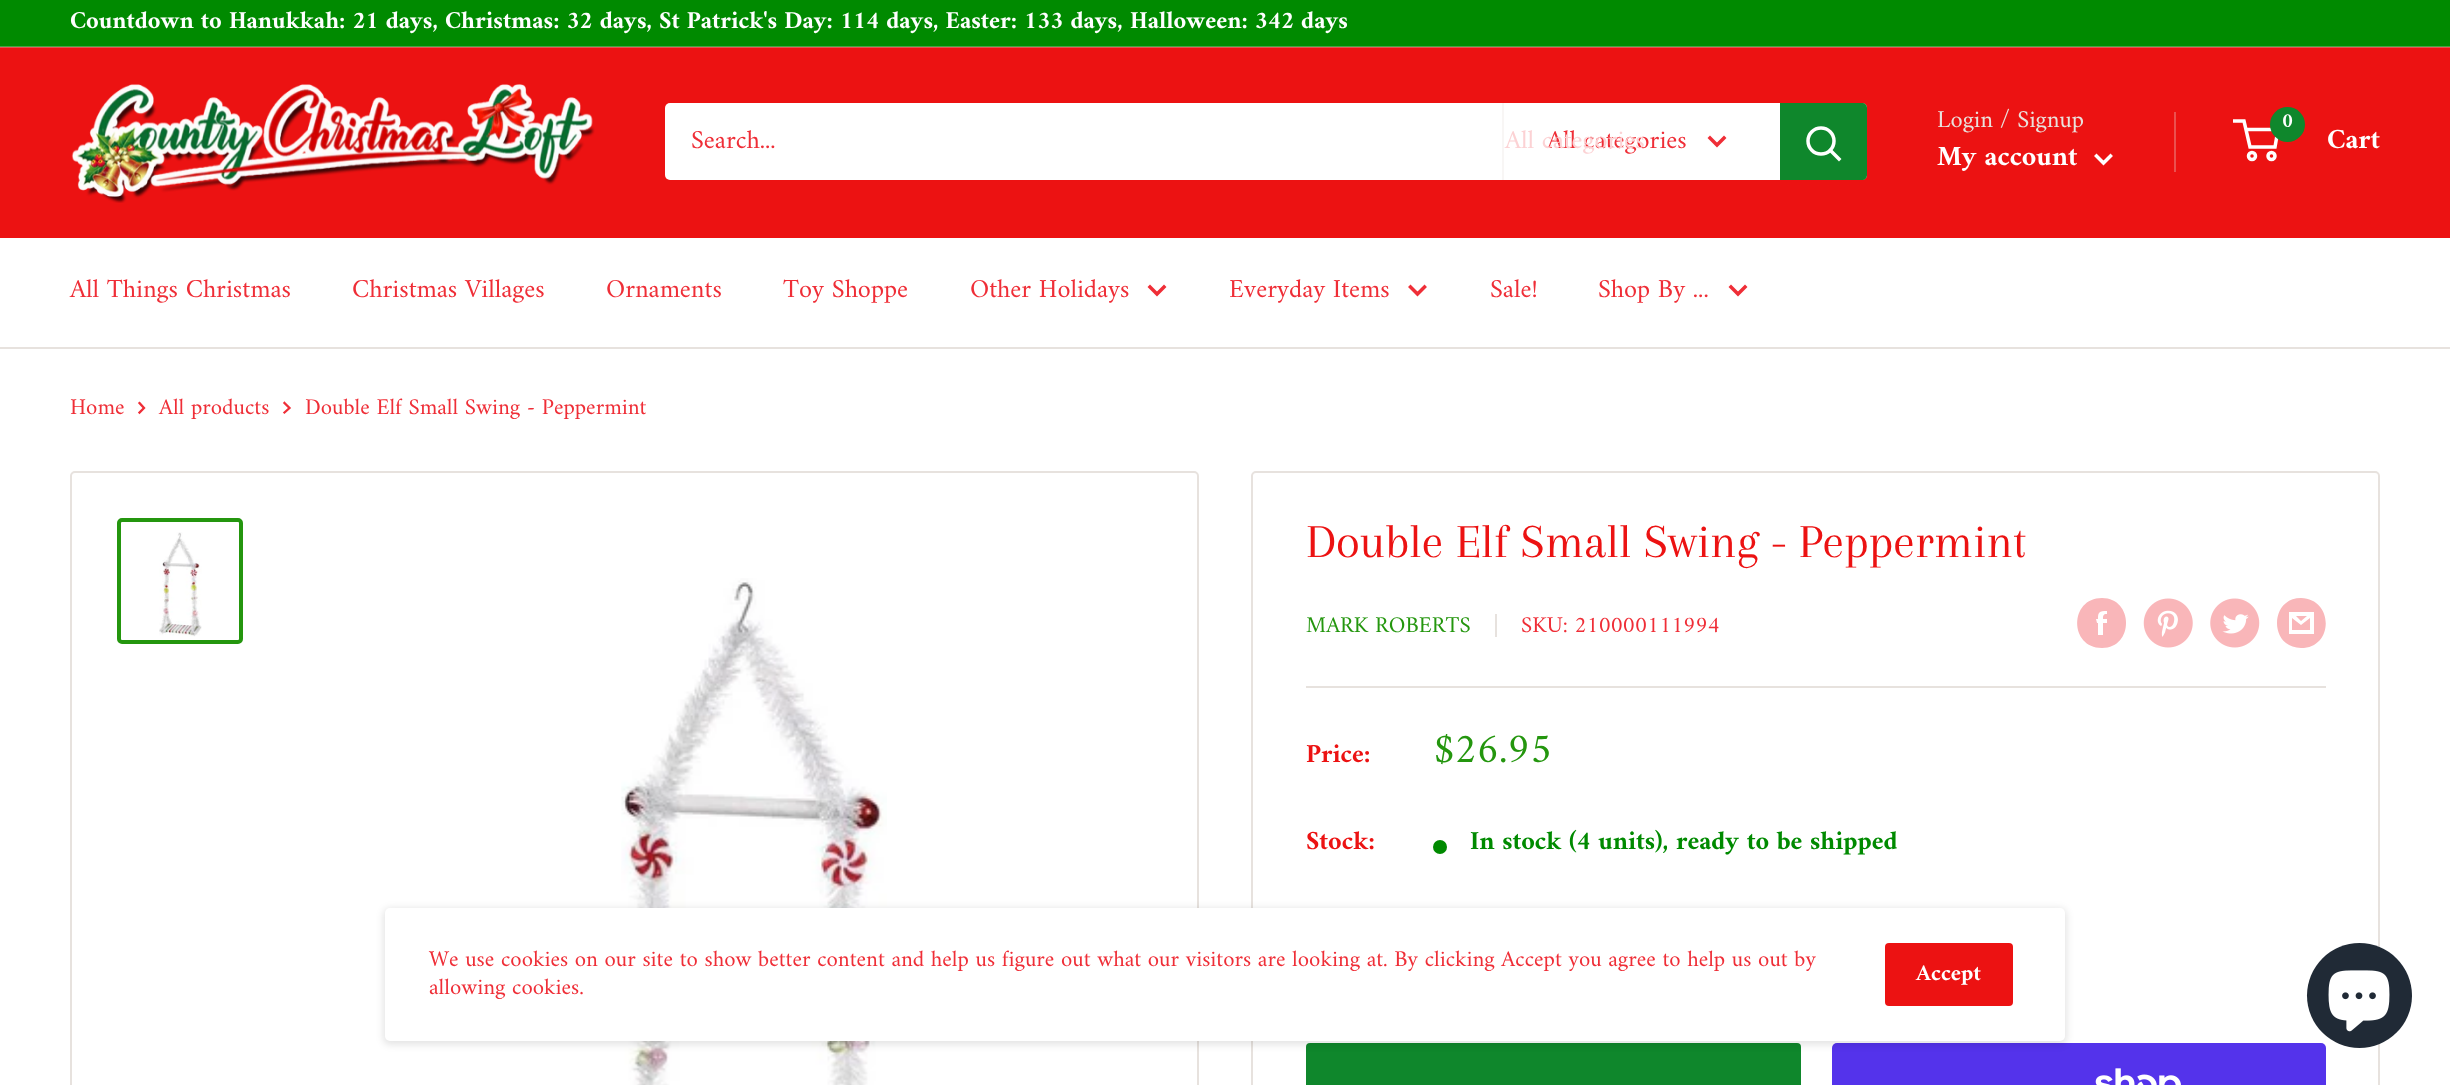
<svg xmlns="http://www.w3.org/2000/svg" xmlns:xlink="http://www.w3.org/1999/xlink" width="2450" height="1085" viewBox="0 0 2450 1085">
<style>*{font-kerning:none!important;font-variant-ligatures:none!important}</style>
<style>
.cls-1{font:bold 24.5px Amiri;fill:#ffffff}
.cls-2{font:26.25px Amiri;fill:#ef2e37}
.cls-3{font:26.25px Amiri;fill:#fcd2d4}
.cls-4{font:24.5px Amiri;fill:#e9e2dd}
.cls-5{font:bold 28px Amiri;fill:#ffffff}
.cls-6{font:bold 21px Amiri;fill:#ffffff}
.cls-7{font:22.75px Amiri;fill:#ef2e37}
.cls-8{font:49px Arapey;fill:#ec1212}
.cls-9{font:22.75px Amiri;fill:#24960e}
.cls-10{font:bold 26.25px Amiri;fill:#ec1212}
.cls-11{font:42px Amiri;fill:#24960e}
.cls-12{font:bold 26.25px Amiri;fill:#008a00}
.cls-13{font:bold 22.75px Amiri;fill:#ffffff}
</style>
<rect width="100%" height="100%" fill="#ffffff"/>
<rect fill="#008a00" x="0" y="0" width="2450" height="46"/>
<rect fill="#46a442" x="0" y="46" width="2450" height="1"/>
<rect fill="#ec1212" x="0" y="48" width="2450" height="190"/>
<rect fill="#eb504f" x="0" y="47" width="2450" height="1"/>
<image xlink:href="image0.png" x="71" y="84" width="524" height="119"/>
<rect fill="#ffffff" x="665" y="103" width="1202" height="77" rx="5"/>
<rect fill="#f8f6f5" x="1502" y="103" width="2" height="77"/>
<path fill="none" stroke="#ef2e37" stroke-width="3.5" stroke-linecap="square" d="M1724 138L1717 145L1710 138"/>
<path fill="#0f872c" d="M1780 103H1862C1865 103 1867 105 1867 108V175C1867 178 1865 180 1862 180H1780Z"/>
<path fill="none" stroke="#ffffff" stroke-width="3.5" stroke-linecap="square" d="M1839 159L1830.5 150.5"/>
<circle fill="none" stroke="#ffffff" stroke-width="3.5" cx="1821" cy="141" r="13"/>
<rect fill="#eb504f" x="2174" y="112" width="2" height="60"/>
<path fill="none" stroke="#ffffff" stroke-width="3.5" stroke-linecap="square" d="M2110.5 156L2103.5 163L2096.5 156"/>
<circle fill="none" stroke="#ffffff" stroke-width="3.5" cx="2252" cy="156" r="3.5"/>
<circle fill="none" stroke="#ffffff" stroke-width="3.5" cx="2271.5" cy="156" r="3.5"/>
<path fill="none" stroke="#ffffff" stroke-width="3.5" d="M2246 129.5H2278L2275 147H2250L2244 121H2233"/>
<circle fill="#0f872c" cx="2287.5" cy="124.5" r="17.5"/>
<rect fill="#e7e2de" x="0" y="347" width="2450" height="2"/>
<path fill="none" stroke="#ef2e37" stroke-width="3.5" stroke-linecap="square" d="M1164 287L1157 294L1150 287"/>
<path fill="none" stroke="#ef2e37" stroke-width="3.5" stroke-linecap="square" d="M1424.5 287L1417.5 294L1410.5 287"/>
<path fill="none" stroke="#ef2e37" stroke-width="3.5" stroke-linecap="square" d="M1745 287L1738 294L1731 287"/>
<path fill="none" stroke="#ef2e37" stroke-width="2.3" stroke-linecap="square" d="M139.5 403L144 408L139.5 412.5"/>
<path fill="none" stroke="#ef2e37" stroke-width="2.3" stroke-linecap="square" d="M284.5 403L289.5 408L284.5 412.5"/>
<rect fill="none" stroke="#e7e2de" stroke-width="2" x="71" y="472" width="1127" height="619" rx="4"/>
<rect fill="none" stroke="#24960e" stroke-width="4" x="119" y="520" width="122" height="122" rx="3"/>
<image xlink:href="image1.png" x="159" y="532" width="43" height="105"/>
<image xlink:href="image2.png" x="621" y="578" width="266" height="507"/>
<rect fill="none" stroke="#e7e2de" stroke-width="2" x="1252" y="472" width="1127" height="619" rx="4"/>
<rect fill="#e7e2de" x="1495" y="614" width="2" height="23"/>
<path fill="#f9b6b9" fill-rule="evenodd" d="M2102 648C2069 648 2069 598 2102 598C2134 598 2134 648 2102 648ZM2107 619H2103C2103 616 2103 614 2107 614V611C2099 611 2098 612 2098 619H2096L2097 623H2098V635H2103V623H2107Z"/>
<image xlink:href="image3.png" x="2143" y="598" width="50" height="50"/>
<image xlink:href="image4.png" x="2210" y="598" width="50" height="50"/>
<path fill="#f9b6b9" d="M2301 648C2269 648 2269 598 2301 598C2334 599 2334 648 2301 648ZM2296 616H2307L2301 621ZM2310 618V630H2292V618L2301 625ZM2314 612H2289V634H2314Z"/>
<rect fill="#e7e2de" x="1306" y="686" width="1020" height="2"/>
<circle fill="#008a00" cx="1440" cy="847" r="7"/>
<rect fill="#0f872c" x="1306" y="1043" width="495" height="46" rx="4"/>
<rect fill="#5433eb" x="1832" y="1043" width="494" height="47" rx="5"/>
<image xlink:href="image5.png" x="2095" y="1068" width="86" height="17"/>
<rect fill="#000000" fill-opacity="0.1" filter="blur(3.5px)" x="383" y="908" width="1684" height="137" rx="7"/>
<rect fill="#ffffff" x="385" y="908" width="1680" height="133" rx="5"/>
<rect fill="#ec1212" x="1885" y="943" width="128" height="63" rx="4"/>
<circle fill="#202a36" cx="2359.5" cy="995.5" r="52.5"/>
<image xlink:href="image6.png" x="2328" y="970" width="62" height="62"/>
<text class="cls-1" x="70" y="28">Countdown to Hanukkah: 21 days, Christmas: 32 days, St Patrick's Day: 114 days, Easter: 133 days,</text>
<text class="cls-1" x="1130" y="28">Halloween: 342 days</text>
<text class="cls-2" x="691" y="148">Search...</text>
<text class="cls-2" x="1547" y="148">All categories</text>
<text class="cls-3" x="1505" y="148">All categories</text>
<text class="cls-4" x="1937" y="127">Login / Signup</text>
<text class="cls-5" x="1937" y="165">My account</text>
<text class="cls-6" x="2282" y="127">0</text>
<text class="cls-5" x="2327" y="148">Cart</text>
<text class="cls-2" x="70" y="297">All Things Christmas</text>
<text class="cls-2" x="352" y="297">Christmas Villages</text>
<text class="cls-2" x="606" y="297">Ornaments</text>
<text class="cls-2" x="783" y="297">Toy Shoppe</text>
<text class="cls-2" x="970" y="297">Other Holidays</text>
<text class="cls-2" x="1229" y="297">Everyday Items</text>
<text class="cls-2" x="1490" y="297">Sale!</text>
<text class="cls-2" x="1598" y="297">Shop By ...</text>
<text class="cls-7" x="70" y="414">Home</text>
<text class="cls-7" x="159" y="414">All products</text>
<text class="cls-7" x="305" y="414">Double Elf Small Swing - Peppermint</text>
<text class="cls-8" x="1306" y="557">Double Elf Small Swing - Peppermint</text>
<text class="cls-9" x="1306" y="632">MARK ROBERTS</text>
<text class="cls-7" x="1521" y="632">SKU: 210000111994</text>
<text class="cls-10" x="1306" y="762">Price:</text>
<text class="cls-11" x="1434" y="762">$26.95</text>
<text class="cls-10" x="1306" y="849">Stock:</text>
<text class="cls-12" x="1470" y="849">In stock (4 units), ready to be shipped</text>
<text class="cls-7"><tspan x="429" y="966">We use cookies on our site to show better content and help us figure out what our visitors are looking at. By clicking Accept you agree to help us out by</tspan><tspan x="429" y="994">allowing cookies.</tspan></text>
<text class="cls-13" x="1916" y="980">Accept</text>
</svg>
